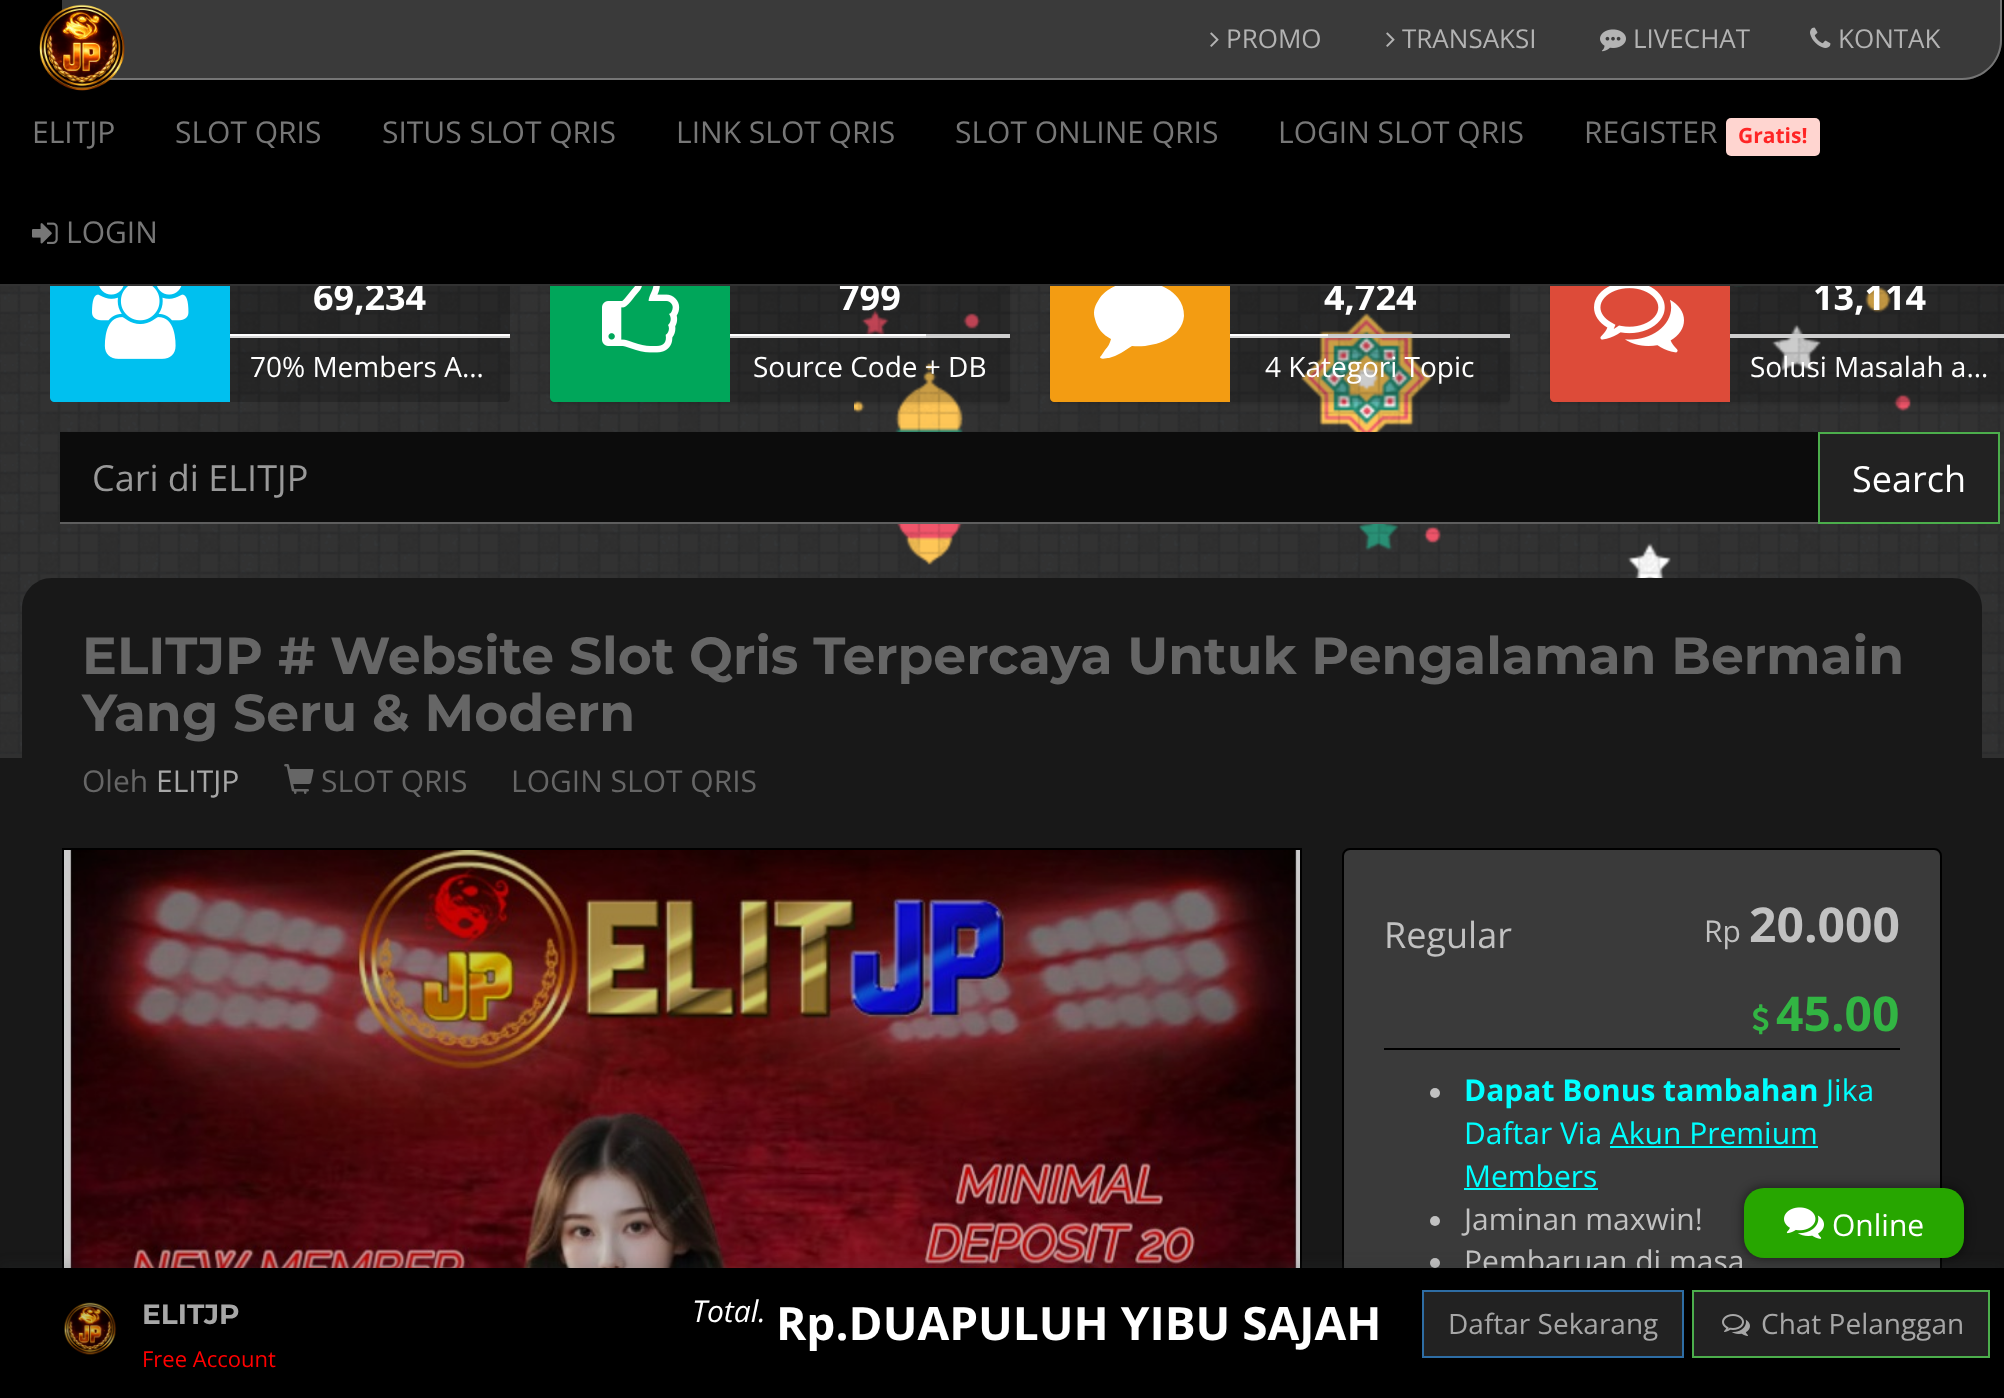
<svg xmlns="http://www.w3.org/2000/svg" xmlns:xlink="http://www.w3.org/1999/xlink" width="2004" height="1398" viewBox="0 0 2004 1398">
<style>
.cls-1{font:bold 36px Open Sans;fill:#ffffff}
.cls-2{font:28px Open Sans;fill:#ffffff}
.cls-3{font:30px Open Sans;fill:#777777}
.cls-4{font:bold 21px Open Sans;fill:#ff2525}
.cls-5{font:26px Open Sans;fill:#b3b3b3}
.cls-6{font:36px Open Sans;fill:#999999}
.cls-7{font:36px Open Sans;fill:#ffffff}
.cls-8{font:bold 52px Montserrat;fill:#666666}
.cls-9{font:30px Open Sans;fill:#666666}
.cls-10{font:30px Open Sans;fill:#a7a7a7}
.cls-11{font:36px Open Sans;fill:#c1c1c1}
.cls-12{font:30px Open Sans;fill:#c1c1c1}
.cls-13{font:bold 48px Open Sans;fill:#c1c1c1}
.cls-14{font:bold 48px Open Sans;fill:#32b543}
.cls-15{font:bold 30px Open Sans;fill:#00ffff}
.cls-16{font:30px Open Sans;fill:#00ffff}
.cls-17{font:bold 28px Montserrat;fill:#a7a7a7}
.cls-18{font:22px Open Sans;fill:#ff0000}
.cls-19{font:italic 30px Open Sans;fill:#ffffff}
.cls-20{font:bold 46px Open Sans;fill:#ffffff}
.cls-21{font:28px Open Sans;fill:#a7a7a7}
.cls-22{font:30px Open Sans;fill:#ffffff}
</style>
<defs>
<clipPath id="clip1"><path d="M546 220H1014V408H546ZM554 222H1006C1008 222 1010 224 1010 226V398C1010 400 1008 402 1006 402H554C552 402 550 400 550 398V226C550 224 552 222 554 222Z" clip-rule="evenodd"/></clipPath>
<clipPath id="clip2"><path d="M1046 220H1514V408H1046ZM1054 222H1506C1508 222 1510 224 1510 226V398C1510 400 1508 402 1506 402H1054C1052 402 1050 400 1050 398V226C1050 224 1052 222 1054 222Z" clip-rule="evenodd"/></clipPath>
<clipPath id="clip3"><path d="M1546 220H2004V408H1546ZM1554 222H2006C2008 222 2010 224 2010 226V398C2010 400 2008 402 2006 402H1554C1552 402 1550 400 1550 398V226C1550 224 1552 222 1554 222Z" clip-rule="evenodd"/></clipPath>
</defs>
<rect width="100%" height="100%" fill="#181818"/>
<rect fill="#323232" x="0" y="286" width="2004" height="468"/>
<image xlink:href="image5.png" x="0" y="286" width="2004" height="468"/>
<rect fill="#303030" x="0" y="754" width="2004" height="4"/>
<rect fill="#000000" fill-opacity="0.2" x="50" y="222" width="460" height="180" rx="4"/>
<path fill="#00c0ef" d="M54 222H230V402H54C52 402 50 400 50 398V226C50 224 52 222 54 222Z"/>
<image xlink:href="image6.png" x="92" y="286" width="97" height="73"/>
<rect fill="#ffffff" x="230" y="334" width="280" height="2"/>
<rect fill="#d9d9d9" x="230" y="336" width="280" height="2"/>
<g clip-path="url(#clip1)">
<rect fill="#000000" fill-opacity="0.1" filter="blur(1px)" x="550" y="224" width="460" height="180" rx="4"/>
</g>
<rect fill="#000000" fill-opacity="0.2" x="550" y="222" width="460" height="180" rx="4"/>
<path fill="#00a65a" d="M554 222H730V402H554C552 402 550 400 550 398V226C550 224 552 222 554 222Z"/>
<image xlink:href="image7.png" x="602" y="286" width="78" height="67"/>
<rect fill="#cecece" x="926" y="334" width="84" height="4"/>
<rect fill="#ffffff" x="730" y="334" width="196" height="2"/>
<rect fill="#d9d9d9" x="730" y="336" width="196" height="2"/>
<g clip-path="url(#clip2)">
<rect fill="#000000" fill-opacity="0.1" filter="blur(1px)" x="1050" y="224" width="460" height="180" rx="4"/>
</g>
<rect fill="#000000" fill-opacity="0.2" x="1050" y="222" width="460" height="180" rx="4"/>
<path fill="#f39c12" d="M1054 222H1230V402H1054C1052 402 1050 400 1050 398V226C1050 224 1052 222 1054 222Z"/>
<path fill="#ffffff" d="M1178 298C1182 303 1184 309 1184 316C1182 340 1151 348 1132 346C1128 348 1125 351 1121 353C1117 355 1113 357 1109 358C1107 358 1100 360 1100 357L1101 356L1105 350C1108 347 1110 343 1111 339C1103 335 1097 328 1095 319C1093 313 1094 307 1098 301C1108 283 1134 279 1154 283C1163 286 1172 290 1178 298Z"/>
<rect fill="#cecece" x="1328" y="334" width="182" height="4"/>
<rect fill="#ffffff" x="1230" y="334" width="98" height="2"/>
<rect fill="#d9d9d9" x="1230" y="336" width="98" height="2"/>
<g clip-path="url(#clip3)">
<rect fill="#000000" fill-opacity="0.1" filter="blur(1px)" x="1550" y="224" width="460" height="180" rx="4"/>
</g>
<rect fill="#000000" fill-opacity="0.2" x="1550" y="222" width="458" height="180" rx="4"/>
<path fill="#dd4b39" d="M1554 222H1730V402H1554C1552 402 1550 400 1550 398V226C1550 224 1552 222 1554 222Z"/>
<image xlink:href="image8.png" x="1594" y="286" width="90" height="67"/>
<rect fill="#cecece" x="1730" y="334" width="274" height="4"/>
<rect fill="#0c0c0c" x="60" y="432" width="1758" height="90"/>
<rect fill="#5e5e5e" x="60" y="522" width="1760" height="2"/>
<rect fill="#222222" stroke="#4cae4c" stroke-width="2" x="1819" y="433" width="180" height="90"/>
<path fill="#181818" d="M52 578H1952C1968.5 578 1982 591.5 1982 608V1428H22V608C22 591.5 35.5 578 52 578Z"/>
<image xlink:href="image9.png" x="284" y="764" width="30" height="30"/>
<rect fill="#000000" x="62" y="848" width="1240" height="420"/>
<image xlink:href="image10.png" x="64" y="850" width="1236" height="418"/>
<rect fill="#3a3a3a" stroke="#000000" stroke-width="2" x="1343" y="849" width="598" height="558" rx="7"/>
<image xlink:href="image11.png" x="1752" y="1004" width="17" height="31"/>
<rect fill="#000000" x="1384" y="1048" width="516" height="2"/>
<circle fill="#c1c1c1" cx="1435" cy="1093" r="5"/>
<rect fill="#00ffff" x="1610" y="1146" width="208" height="2"/>
<rect fill="#00ffff" x="1464" y="1188" width="134" height="2"/>
<circle fill="#c1c1c1" cx="1435" cy="1221" r="5"/>
<circle fill="#c1c1c1" cx="1435" cy="1263" r="5"/>
<rect fill="#000000" fill-opacity="0.4" filter="blur(5px)" x="1742" y="1186" width="224" height="74" rx="22"/>
<rect fill="#27a600" x="1744" y="1188" width="220" height="70" rx="20"/>
<rect fill="#31353b" fill-opacity="0.16" filter="blur(6px)" x="0" y="1264" width="2004" height="130"/>
<image xlink:href="image14.png" x="1784" y="1207" width="40" height="32"/>
<text class="cls-1" x="313" y="310">69,234</text>
<text class="cls-2" x="250" y="377">70% Members A…</text>
<text class="cls-1" x="839" y="310">799</text>
<text class="cls-2" x="753" y="377">Source Code + DB</text>
<text class="cls-1" x="1324" y="310">4,724</text>
<text class="cls-2" x="1265" y="377">4 Kategori Topic</text>
<text class="cls-1" x="1813" y="310">13,114</text>
<rect fill="#000000" x="0" y="0" width="2004" height="284"/>
<text class="cls-3" x="66" y="243">LOGIN</text>
<image xlink:href="image4.png" x="32" y="222" width="26" height="22"/>
<rect fill="#ffd5d0" x="1726" y="118" width="94" height="38" rx="5"/>
<text class="cls-4" x="1738" y="143">Gratis!</text>
<text class="cls-3" x="1584" y="143">REGISTER</text>
<text class="cls-3" x="1278" y="143">LOGIN SLOT QRIS</text>
<text class="cls-3" x="955" y="143">SLOT ONLINE QRIS</text>
<text class="cls-3" x="676" y="143">LINK SLOT QRIS</text>
<text class="cls-3" x="382" y="143">SITUS SLOT QRIS</text>
<text class="cls-3" x="175" y="143">SLOT QRIS</text>
<text class="cls-3" x="32" y="143">ELITJP</text>
<path fill="#3a3a3a" d="M62 0H2002V40C2002 62 1984 80 1962 80H62Z"/>
<path fill="#757575" fill-rule="evenodd" d="M62 0H2002V40C2002 62 1984 80 1962 80H62ZM62 0H2000V40C2000 61 1983 78 1962 78H62Z"/>
<text class="cls-5" x="1226" y="48">PROMO</text>
<image xlink:href="image1.png" x="1210" y="32" width="9" height="15"/>
<text class="cls-5" x="1402" y="48">TRANSAKSI</text>
<image xlink:href="image1.png" x="1386" y="32" width="9" height="15"/>
<text class="cls-5" x="1633" y="48">LIVECHAT</text>
<image xlink:href="image2.png" x="1600" y="29" width="26" height="23"/>
<text class="cls-5" x="1838" y="48">KONTAK</text>
<image xlink:href="image3.png" x="1810" y="27" width="21" height="21"/>
<image xlink:href="image0.png" x="39" y="4" width="86" height="87"/>
<rect fill="#323232" x="0" y="284" width="2004" height="2"/>
<text class="cls-2" x="1750" y="377">Solusi Masalah a…</text>
<text class="cls-6" x="92" y="491">Cari di ELITJP</text>
<text class="cls-7" x="1852" y="492">Search</text>
<text class="cls-8"><tspan x="82" y="674">ELITJP # Website Slot Qris Terpercaya Untuk Pengalaman Bermain</tspan><tspan x="82" y="731">Yang Seru &amp; Modern</tspan></text>
<text class="cls-9" x="82" y="792">Oleh</text>
<text class="cls-10" x="156" y="792">ELITJP</text>
<text class="cls-9" x="321" y="792">SLOT QRIS</text>
<text class="cls-9" x="511" y="792">LOGIN SLOT QRIS</text>
<text class="cls-11" x="1384" y="948">Regular</text>
<text class="cls-12" x="1704" y="942">Rp</text>
<text class="cls-13" x="1749" y="942">20.000</text>
<text class="cls-14" x="1776" y="1031">45.00</text>
<text class="cls-15" x="1464" y="1101">Dapat Bonus tambahan</text>
<text class="cls-16" x="1826" y="1101">Jika</text>
<text class="cls-16"><tspan x="1464" y="1144">Daftar Via Akun Premium</tspan><tspan x="1464" y="1187">Members</tspan></text>
<text class="cls-12"><tspan x="1464" y="1230">Jaminan maxwin!</tspan><tspan x="1464" y="1272">Pembaruan di masa</tspan></text>
<rect fill="#000000" x="0" y="1268" width="2004" height="130"/>
<image xlink:href="image12.png" x="64" y="1302" width="53" height="53"/>
<text class="cls-17" x="142" y="1324">ELITJP</text>
<text class="cls-18" x="142" y="1367">Free Account</text>
<text class="cls-19" x="692" y="1322">Total.</text>
<text class="cls-20" x="776" y="1340">Rp.DUAPULUH YIBU SAJAH</text>
<rect fill="#222222" stroke="#2e6da4" stroke-width="2" x="1423" y="1291" width="260" height="66"/>
<text class="cls-21" x="1448" y="1334">Daftar Sekarang</text>
<rect fill="#222222" stroke="#4cae4c" stroke-width="2" x="1693" y="1291" width="296" height="66"/>
<image xlink:href="image13.png" x="1722" y="1314" width="28" height="22"/>
<text class="cls-21" x="1761" y="1334">Chat Pelanggan</text>
<text class="cls-22" x="1832" y="1236">Online</text>
</svg>
